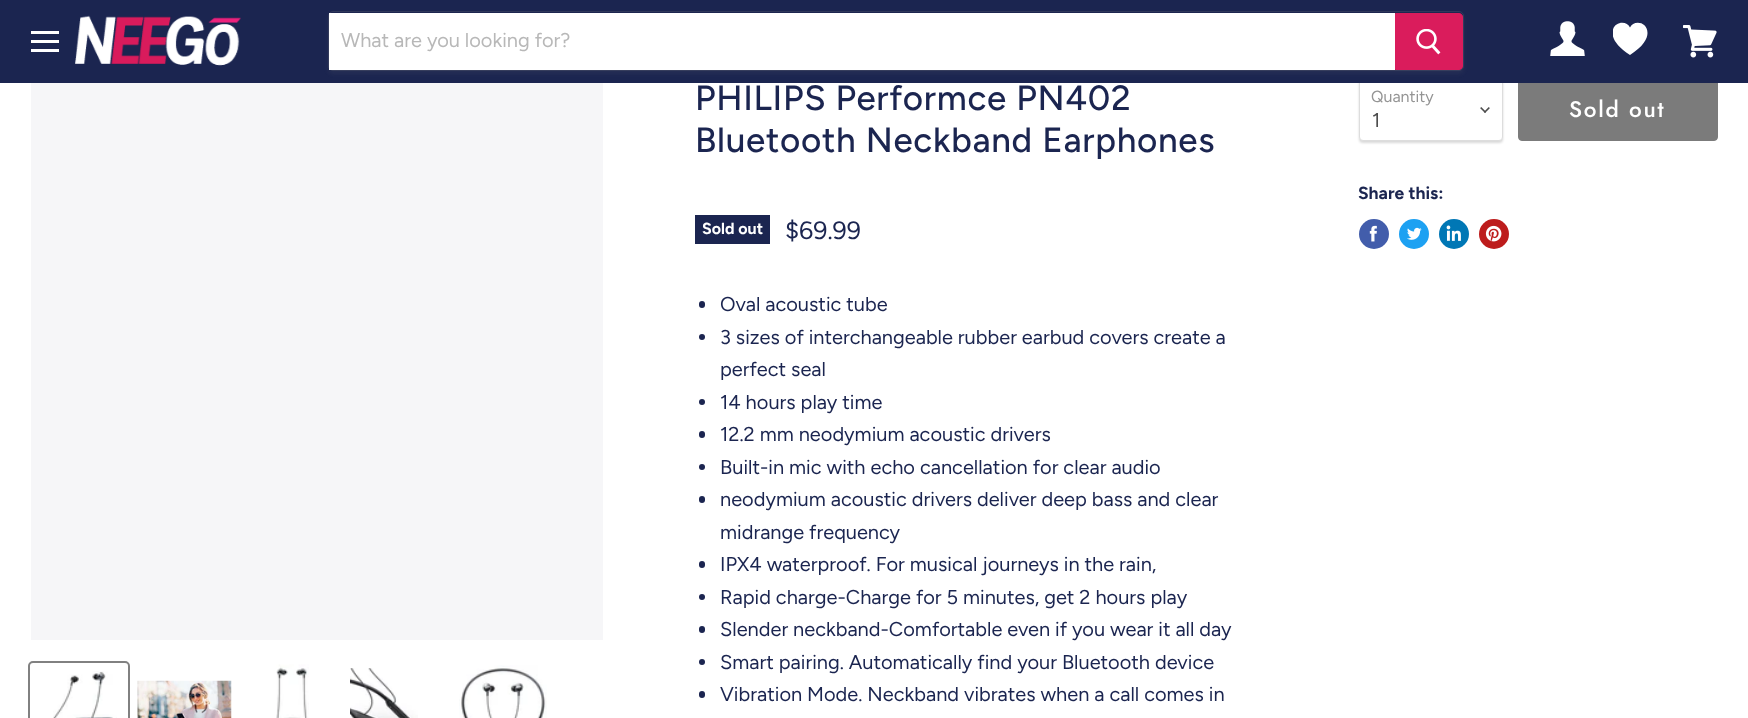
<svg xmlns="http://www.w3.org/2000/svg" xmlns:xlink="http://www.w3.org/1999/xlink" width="1748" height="718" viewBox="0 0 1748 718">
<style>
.cls-1{font:20px Figtree;fill:#b8b8b8}
.cls-2{font:500 35px Figtree;letter-spacing:0.7px;fill:#1b2550}
.cls-3{font:bold 16px Figtree;fill:#ffffff}
.cls-4{font:25px Figtree;fill:#1b2550}
.cls-5{font:20px Figtree;fill:#1b2550}
.cls-6{font:16px Figtree;fill:#949494}
.cls-7{font:20px Figtree;fill:#4d4d4d}
.cls-8{font:500 22.5px Jost;letter-spacing:1.75px;fill:#ffffff}
.cls-9{font:bold 17.5px Figtree;fill:#1b2550}
</style>
<defs>
<clipPath id="clip1"><rect x="1613" y="21" width="35" height="35"/></clipPath>
</defs>
<rect width="100%" height="100%" fill="#ffffff"/>
<rect fill="#000000" fill-opacity="0.15" filter="blur(1px)" x="1359" y="80" width="144" height="63" rx="4"/>
<rect fill="#ffffff" stroke="#dddddd" x="1359.5" y="79.5" width="143" height="61" rx="3.5"/>
<rect fill="#7b7b7b" stroke="#7b7b7b" x="1518.5" y="78.5" width="199" height="62" rx="3.5"/>
<rect fill="#1b2550" x="0" y="0" width="1748" height="83"/>
<rect fill="#ffffff" x="31" y="31" width="28" height="3"/>
<rect fill="#ffffff" x="31" y="40" width="28" height="3"/>
<rect fill="#ffffff" x="31" y="49" width="28" height="3"/>
<image xlink:href="image0.png" x="75" y="15" width="166" height="51"/>
<rect fill="#808080" fill-opacity="0.11" filter="blur(2px)" x="328" y="14" width="1136" height="60" rx="5"/>
<rect fill="none" stroke="#808080" stroke-opacity="0.2" x="328.5" y="11.5" width="1135" height="59" rx="4.5"/>
<rect fill="#ffffff" x="329" y="13" width="1066" height="57"/>
<path fill="#da1c5c" stroke="#da1c5c" d="M1395.5 13.5H1459C1461 13.5 1462.5 15 1462.5 17V66C1462.5 68 1461 69.5 1459 69.5H1395.5Z"/>
<image xlink:href="image1.png" x="1416" y="29" width="25" height="26"/>
<image xlink:href="image2.png" x="1550" y="21" width="35" height="35"/>
<g clip-path="url(#clip1)">
<path fill="#ffffff" d="M1630 27.5C1627 20 1612.5 21 1612.5 33C1612.5 39 1617 46.5 1630 55C1643 46.5 1647.5 39 1647.5 33C1647.5 21 1633 20 1630 27.5Z"/>
</g>
<image xlink:href="image3.png" x="1683" y="25" width="34" height="33"/>
<rect fill="#f6f6f8" x="31" y="83" width="572" height="557"/>
<rect fill="none" stroke="#818181" stroke-width="2" x="29" y="662" width="100" height="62" rx="4"/>
<image xlink:href="image4.png" x="53" y="671" width="64" height="47"/>
<image xlink:href="image5.png" x="137" y="680" width="95" height="38"/>
<image xlink:href="image6.png" x="276" y="664" width="33" height="54"/>
<image xlink:href="image7.png" x="350" y="668" width="68" height="50"/>
<image xlink:href="image8.png" x="459" y="665" width="88" height="53"/>
<rect fill="#1b2550" x="695" y="215" width="75" height="29"/>
<rect fill="#1b2550" x="699" y="301" width="6" height="7" rx="3"/>
<circle fill="#1b2550" cx="702" cy="337" r="3"/>
<circle fill="#1b2550" cx="702" cy="402" r="3"/>
<rect fill="#1b2550" x="699" y="431" width="6" height="7" rx="3"/>
<circle fill="#1b2550" cx="702" cy="467" r="3"/>
<rect fill="#1b2550" x="699" y="496" width="6" height="7" rx="3"/>
<rect fill="#1b2550" x="699" y="561" width="6" height="7" rx="3"/>
<circle fill="#1b2550" cx="702" cy="597" r="3"/>
<rect fill="#1b2550" x="699" y="626" width="6" height="7" rx="3"/>
<circle fill="#1b2550" cx="702" cy="662" r="3"/>
<rect fill="#1b2550" x="699" y="691" width="6" height="7" rx="3"/>
<image xlink:href="image9.png" x="1480" y="107" width="10" height="6"/>
<circle fill="#425dab" cx="1374" cy="234" r="15"/>
<image xlink:href="image10.png" x="1369" y="225" width="8" height="17"/>
<circle fill="#1da1f2" cx="1414" cy="234" r="15"/>
<image xlink:href="image11.png" x="1407" y="227" width="15" height="13"/>
<circle fill="#0077b5" cx="1454" cy="234" r="15"/>
<image xlink:href="image12.png" x="1446" y="225" width="15" height="16"/>
<circle fill="#bd1c1c" cx="1494" cy="234" r="15"/>
<image xlink:href="image13.png" x="1485" y="225" width="17" height="17"/>
<text class="cls-1" x="341" y="47">What are you looking for?</text>
<text class="cls-2"><tspan x="695" y="110">PHILIPS Performce PN402</tspan><tspan x="695" y="152">Bluetooth Neckband Earphones</tspan></text>
<text class="cls-3" x="702" y="234">Sold out</text>
<text class="cls-4" x="785" y="239">$69.99</text>
<text class="cls-5"><tspan x="720" y="311">Oval acoustic tube</tspan><tspan x="720" y="344">3 sizes of interchangeable rubber earbud covers create a</tspan><tspan x="720" y="376">perfect seal</tspan><tspan x="720" y="409">14 hours play time</tspan><tspan x="720" y="441">12.2 mm neodymium acoustic drivers</tspan><tspan x="720" y="474">Built-in mic with echo cancellation for clear audio</tspan><tspan x="720" y="506">neodymium acoustic drivers deliver deep bass and clear</tspan><tspan x="720" y="539">midrange frequency</tspan><tspan x="720" y="571">IPX4 waterproof. For musical journeys in the rain,</tspan><tspan x="720" y="604">Rapid charge-Charge for 5 minutes, get 2 hours play</tspan><tspan x="720" y="636">Slender neckband-Comfortable even if you wear it all day</tspan><tspan x="720" y="669">Smart pairing. Automatically find your Bluetooth device</tspan><tspan x="720" y="701">Vibration Mode. Neckband vibrates when a call comes in</tspan></text>
<text class="cls-6" x="1371" y="102">Quantity</text>
<text class="cls-7" x="1372" y="127">1</text>
<text class="cls-8" x="1569" y="117">Sold out</text>
<text class="cls-9" x="1358" y="199">Share this:</text>
</svg>
